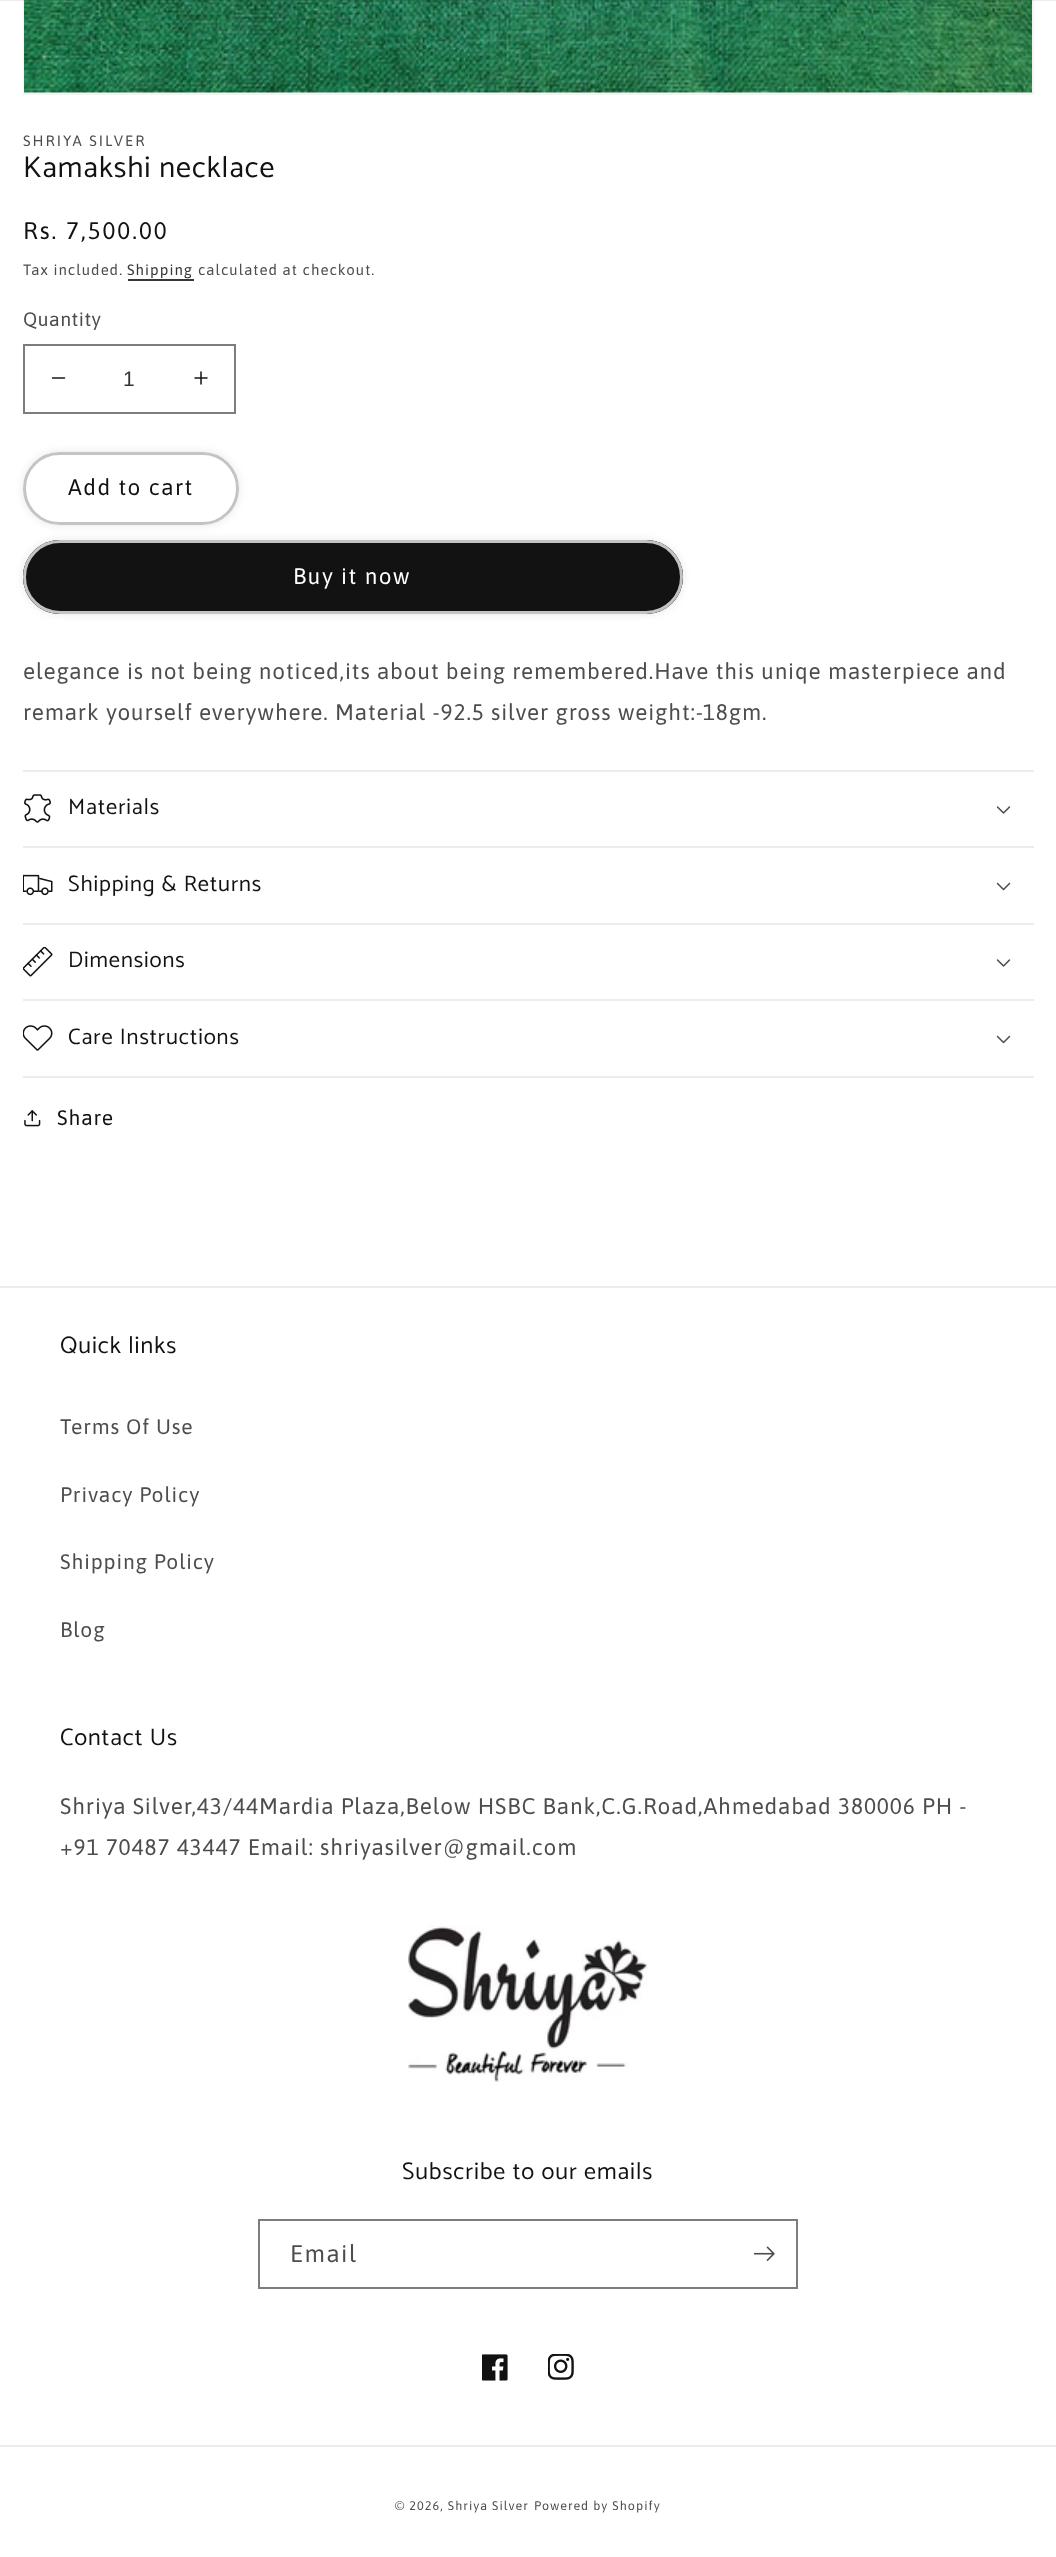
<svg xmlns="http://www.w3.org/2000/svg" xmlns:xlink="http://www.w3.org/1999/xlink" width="1056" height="2557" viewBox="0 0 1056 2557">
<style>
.cls-1{font:15px Asap;letter-spacing:2px;fill:#4d4d4d}
.cls-2{font:30px Catamaran;letter-spacing:0.9px;fill:#121212}
.cls-3{font:24px Asap;letter-spacing:2px;fill:#121212}
.cls-4{font:15px Asap;letter-spacing:1.05px;fill:#4d4d4d}
.cls-5{font:15px Asap;letter-spacing:1.05px;fill:#363636}
.cls-6{font:19.5px Asap;letter-spacing:0.5px;fill:#4d4d4d}
.cls-7{font:21px Liberation Sans;fill:#363636}
.cls-8{font:22.5px Asap;letter-spacing:1.5px;fill:#121212}
.cls-9{font:22.5px Asap;letter-spacing:1.5px;fill:#ffffff}
.cls-10{font:22.5px Asap;letter-spacing:0.9px;fill:#4d4d4d}
.cls-11{font:22.5px Catamaran;letter-spacing:0.9px;fill:#121212}
.cls-12{font:21px Asap;letter-spacing:0.9px;fill:#121212}
.cls-13{font:24px Catamaran;letter-spacing:0.9px;fill:#121212}
.cls-14{font:21px Asap;letter-spacing:0.9px;fill:#4d4d4d}
.cls-15{font:24px Asap;letter-spacing:1.5px;fill:#4d4d4d}
.cls-16{font:12.5px Asap;letter-spacing:1.05px;fill:#4d4d4d}
</style>
<rect width="100%" height="100%" fill="#ffffff"/>
<rect fill="none" stroke="#f3f3f3" stroke-width="2" x="24" y="-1" width="1009" height="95"/>
<image xlink:href="image0.png" x="24" y="0" width="1008" height="93"/>
<rect fill="#121212" fill-opacity="0.08" x="0" y="0" width="1056" height="1"/>
<rect fill="#363636" x="128" y="279" width="66" height="2"/>
<image xlink:href="image1.png" x="51" y="377" width="15" height="2"/>
<image xlink:href="image2.png" x="194" y="371" width="14" height="14"/>
<rect fill="none" stroke="#7d7d7d" stroke-width="2" x="24" y="345" width="211" height="68"/>
<rect fill="#121212" fill-opacity="0.1" filter="blur(4px)" x="23" y="452" width="216" height="73" rx="36.5"/>
<rect fill="#ffffff" x="23" y="452" width="216" height="73" rx="36.5"/>
<rect fill="none" stroke="#ffffff" stroke-width="3" x="24.5" y="453.5" width="213" height="70" rx="35"/>
<rect fill="none" stroke="#c4c4c4" stroke-width="3" x="24.5" y="453.5" width="213" height="70" rx="35"/>
<rect fill="#121212" fill-opacity="0.1" filter="blur(4px)" x="23" y="540" width="660" height="74" rx="37"/>
<rect fill="#121212" x="23" y="540" width="660" height="74" rx="37"/>
<rect fill="none" stroke="#121212" stroke-width="3" x="24.5" y="541.5" width="657" height="71" rx="35.5"/>
<rect fill="none" stroke="#ffffff" stroke-opacity="0.75" stroke-width="3" x="24.5" y="541.5" width="657" height="71" rx="35.5"/>
<rect fill="#ececec" x="23" y="770" width="1011" height="2"/>
<rect fill="#ececec" x="23" y="846" width="1011" height="2"/>
<image xlink:href="image3.png" x="24" y="794" width="27" height="29"/>
<image xlink:href="image4.png" x="996" y="806" width="15" height="8"/>
<rect fill="#ececec" x="23" y="923" width="1011" height="2"/>
<image xlink:href="image5.png" x="23" y="874" width="30" height="22"/>
<image xlink:href="image6.png" x="996" y="882" width="15" height="9"/>
<rect fill="#ececec" x="23" y="999" width="1011" height="2"/>
<image xlink:href="image7.png" x="23" y="947" width="30" height="30"/>
<image xlink:href="image4.png" x="996" y="959" width="15" height="8"/>
<rect fill="#ececec" x="23" y="1076" width="1011" height="2"/>
<image xlink:href="image8.png" x="23" y="1025" width="30" height="26"/>
<image xlink:href="image6.png" x="996" y="1035" width="15" height="9"/>
<image xlink:href="image9.png" x="24" y="1110" width="17" height="17"/>
<rect fill="#ececec" x="0" y="1286" width="1056" height="2"/>
<image xlink:href="image10.png" x="408" y="1925" width="240" height="157"/>
<rect fill="none" stroke="#7d7d7d" stroke-width="2" x="259" y="2220" width="538" height="68"/>
<image xlink:href="image11.png" x="753" y="2246" width="22" height="15"/>
<image xlink:href="image12.png" x="482" y="2354" width="26" height="27"/>
<image xlink:href="image13.png" x="548" y="2354" width="26" height="26"/>
<rect fill="#ececec" x="0" y="2445" width="1056" height="2"/>
<text class="cls-1" x="23" y="146">SHRIYA SILVER</text>
<text class="cls-2" x="23" y="177">Kamakshi necklace</text>
<text class="cls-3" x="23" y="239">Rs. 7,500.00</text>
<text class="cls-4" x="23" y="275">Tax included.</text>
<text class="cls-5" x="127" y="275">Shipping</text>
<text class="cls-4" x="198" y="275">calculated at checkout.</text>
<text class="cls-6" x="23" y="326">Quantity</text>
<text class="cls-7" x="123" y="386">1</text>
<text class="cls-8" x="68" y="495">Add to cart</text>
<text class="cls-9" x="293" y="584">Buy it now</text>
<text class="cls-10"><tspan x="23" y="679">elegance is not being noticed,its about being remembered.Have this uniqe masterpiece and</tspan><tspan x="23" y="720">remark yourself everywhere. Material -92.5 silver gross weight:-18gm.</tspan></text>
<text class="cls-11" x="68" y="814">Materials</text>
<text class="cls-11" x="68" y="891">Shipping &amp; Returns</text>
<text class="cls-11" x="68" y="967">Dimensions</text>
<text class="cls-11" x="68" y="1044">Care Instructions</text>
<text class="cls-12" x="57" y="1125">Share</text>
<text class="cls-13" x="60" y="1353">Quick links</text>
<text class="cls-14" x="60" y="1434">Terms Of Use</text>
<text class="cls-14" x="60" y="1502">Privacy Policy</text>
<text class="cls-14" x="60" y="1569">Shipping Policy</text>
<text class="cls-14" x="60" y="1637">Blog</text>
<text class="cls-13" x="60" y="1745">Contact Us</text>
<text class="cls-10"><tspan x="60" y="1814">Shriya Silver,43/44Mardia Plaza,Below HSBC Bank,C.G.Road,Ahmedabad 380006 PH -</tspan><tspan x="60" y="1855">+91 70487 43447 Email: shriyasilver@gmail.com</tspan></text>
<text class="cls-13" x="402" y="2179">Subscribe to our emails</text>
<text class="cls-15" x="290" y="2262">Email</text>
<text class="cls-16" x="395" y="2510">© 2026, Shriya Silver</text>
<text class="cls-16" x="534" y="2510">Powered by Shopify</text>
</svg>
